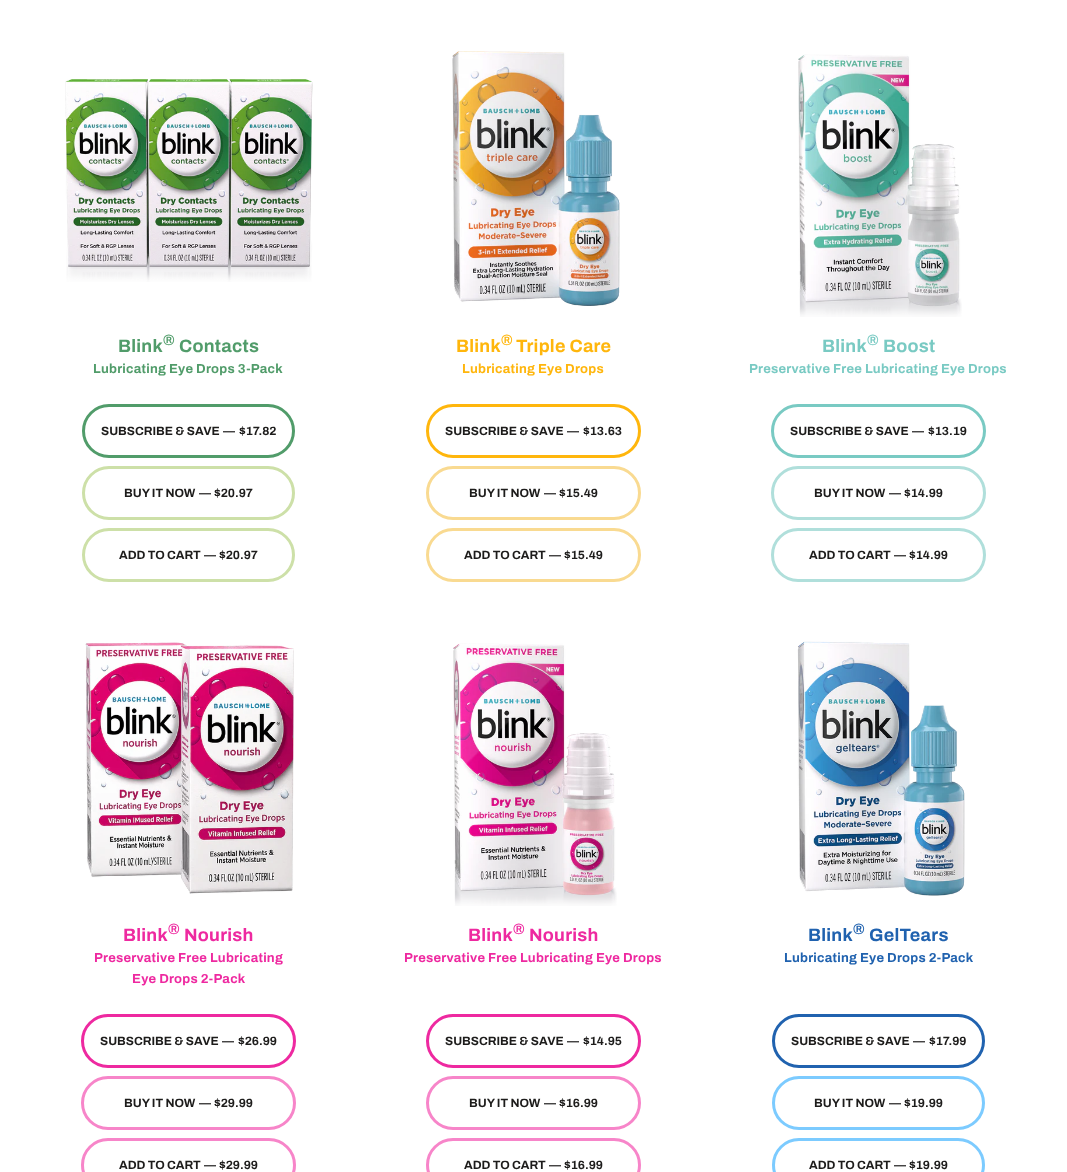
<svg xmlns="http://www.w3.org/2000/svg" xmlns:xlink="http://www.w3.org/1999/xlink" width="1067" height="1172" viewBox="0 0 1067 1172">
<style>
.cls-1{font:bold 18px Archivo;letter-spacing:0.25px;fill:#519c6a}
.cls-2{font:bold 15px Archivo;letter-spacing:0.25px;fill:#519c6a}
.cls-3{font:bold 13px Archivo;letter-spacing:0.25px;fill:#519c6a}
.cls-4{font:bold 12px Archivo;fill:#1d1c1b}
.cls-5{font:bold 18px Archivo;letter-spacing:0.25px;fill:#ffb60c}
.cls-6{font:bold 15px Archivo;letter-spacing:0.25px;fill:#ffb60c}
.cls-7{font:bold 13px Archivo;letter-spacing:0.25px;fill:#ffb60c}
.cls-8{font:bold 18px Archivo;letter-spacing:0.25px;fill:#79cac3}
.cls-9{font:bold 15px Archivo;letter-spacing:0.25px;fill:#79cac3}
.cls-10{font:bold 13px Archivo;letter-spacing:0.25px;fill:#79cac3}
.cls-11{font:bold 18px Archivo;letter-spacing:0.25px;fill:#ee29a0}
.cls-12{font:bold 15px Archivo;letter-spacing:0.25px;fill:#ee29a0}
.cls-13{font:bold 13px Archivo;letter-spacing:0.25px;fill:#ee29a0}
.cls-14{font:bold 18px Archivo;letter-spacing:0.25px;fill:#2062af}
.cls-15{font:bold 15px Archivo;letter-spacing:0.25px;fill:#2062af}
.cls-16{font:bold 13px Archivo;letter-spacing:0.25px;fill:#2062af}
</style>
<rect width="100%" height="100%" fill="#ffffff"/>
<image xlink:href="image0.png" x="65" y="79" width="248" height="203"/>
<rect fill="none" stroke="#519c6a" stroke-width="3" x="83.5" y="405.5" width="210" height="51" rx="25.5"/>
<rect fill="none" stroke="#cde0a8" stroke-width="3" x="83.5" y="467.5" width="210" height="51" rx="25.5"/>
<rect fill="none" stroke="#cde0a8" stroke-width="3" x="83.5" y="529.5" width="210" height="51" rx="25.5"/>
<image xlink:href="image1.png" x="452" y="51" width="168" height="255"/>
<rect fill="none" stroke="#ffb60c" stroke-width="3" x="427.5" y="405.5" width="212" height="51" rx="25.5"/>
<rect fill="none" stroke="#f9da91" stroke-width="3" x="427.5" y="467.5" width="212" height="51" rx="25.5"/>
<rect fill="none" stroke="#f9da91" stroke-width="3" x="427.5" y="529.5" width="212" height="51" rx="25.5"/>
<image xlink:href="image2.png" x="798" y="54" width="164" height="263"/>
<rect fill="none" stroke="#79cac3" stroke-width="3" x="772.5" y="405.5" width="212" height="51" rx="25.5"/>
<rect fill="none" stroke="#b0dfdb" stroke-width="3" x="772.5" y="467.5" width="212" height="51" rx="25.5"/>
<rect fill="none" stroke="#b0dfdb" stroke-width="3" x="772.5" y="529.5" width="212" height="51" rx="25.5"/>
<image xlink:href="image3.png" x="85" y="642" width="209" height="252"/>
<rect fill="none" stroke="#ee29a0" stroke-width="3" x="82.5" y="1015.5" width="212" height="51" rx="25.5"/>
<rect fill="none" stroke="#f785c9" stroke-width="3" x="82.5" y="1077.5" width="212" height="51" rx="25.5"/>
<rect fill="none" stroke="#f785c9" stroke-width="3" x="82.5" y="1139.5" width="212" height="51" rx="25.5"/>
<image xlink:href="image4.png" x="453" y="643" width="164" height="263"/>
<rect fill="none" stroke="#ee29a0" stroke-width="3" x="427.5" y="1015.5" width="212" height="51" rx="25.5"/>
<rect fill="none" stroke="#f785c9" stroke-width="3" x="427.5" y="1077.5" width="212" height="51" rx="25.5"/>
<rect fill="none" stroke="#f785c9" stroke-width="3" x="427.5" y="1139.5" width="212" height="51" rx="25.5"/>
<image xlink:href="image5.png" x="797" y="641" width="168" height="255"/>
<rect fill="none" stroke="#2062af" stroke-width="3" x="773.5" y="1015.5" width="210" height="51" rx="25.5"/>
<rect fill="none" stroke="#7ccbff" stroke-width="3" x="773.5" y="1077.5" width="210" height="51" rx="25.5"/>
<rect fill="none" stroke="#7ccbff" stroke-width="3" x="773.5" y="1139.5" width="210" height="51" rx="25.5"/>
<text class="cls-1" x="118" y="352">Blink</text>
<text class="cls-2" x="163" y="345">®</text>
<text class="cls-1" x="179" y="352">Contacts</text>
<text class="cls-3" x="93" y="373">Lubricating Eye Drops 3-Pack</text>
<text class="cls-4" x="101" y="435">SUBSCRIBE &amp; SAVE</text>
<text class="cls-4" x="223" y="435">—</text>
<text class="cls-4" x="239" y="435">$17.82</text>
<text class="cls-4" x="124" y="497">BUY IT NOW</text>
<text class="cls-4" x="199" y="497">—</text>
<text class="cls-4" x="214" y="497">$20.97</text>
<text class="cls-4" x="119" y="559">ADD TO CART</text>
<text class="cls-4" x="204" y="559">—</text>
<text class="cls-4" x="219" y="559">$20.97</text>
<text class="cls-5" x="456" y="352">Blink</text>
<text class="cls-6" x="501" y="345">®</text>
<text class="cls-5" x="516" y="352">Triple Care</text>
<text class="cls-7" x="462" y="373">Lubricating Eye Drops</text>
<text class="cls-4" x="445" y="435">SUBSCRIBE &amp; SAVE</text>
<text class="cls-4" x="567" y="435">—</text>
<text class="cls-4" x="583" y="435">$13.63</text>
<text class="cls-4" x="469" y="497">BUY IT NOW</text>
<text class="cls-4" x="544" y="497">—</text>
<text class="cls-4" x="559" y="497">$15.49</text>
<text class="cls-4" x="464" y="559">ADD TO CART</text>
<text class="cls-4" x="549" y="559">—</text>
<text class="cls-4" x="564" y="559">$15.49</text>
<text class="cls-8" x="822" y="352">Blink</text>
<text class="cls-9" x="867" y="345">®</text>
<text class="cls-8" x="883" y="352">Boost</text>
<text class="cls-10" x="749" y="373">Preservative Free Lubricating Eye Drops</text>
<text class="cls-4" x="790" y="435">SUBSCRIBE &amp; SAVE</text>
<text class="cls-4" x="912" y="435">—</text>
<text class="cls-4" x="928" y="435">$13.19</text>
<text class="cls-4" x="814" y="497">BUY IT NOW</text>
<text class="cls-4" x="889" y="497">—</text>
<text class="cls-4" x="904" y="497">$14.99</text>
<text class="cls-4" x="809" y="559">ADD TO CART</text>
<text class="cls-4" x="894" y="559">—</text>
<text class="cls-4" x="909" y="559">$14.99</text>
<text class="cls-11" x="123" y="941">Blink</text>
<text class="cls-12" x="168" y="934">®</text>
<text class="cls-11" x="184" y="941">Nourish</text>
<text class="cls-13" x="94" y="962">Preservative Free Lubricating</text>
<text class="cls-13" x="132" y="983">Eye Drops 2-Pack</text>
<text class="cls-4" x="100" y="1045">SUBSCRIBE &amp; SAVE</text>
<text class="cls-4" x="222" y="1045">—</text>
<text class="cls-4" x="238" y="1045">$26.99</text>
<text class="cls-4" x="124" y="1107">BUY IT NOW</text>
<text class="cls-4" x="199" y="1107">—</text>
<text class="cls-4" x="214" y="1107">$29.99</text>
<text class="cls-4" x="119" y="1169">ADD TO CART</text>
<text class="cls-4" x="204" y="1169">—</text>
<text class="cls-4" x="219" y="1169">$29.99</text>
<text class="cls-11" x="468" y="941">Blink</text>
<text class="cls-12" x="513" y="934">®</text>
<text class="cls-11" x="529" y="941">Nourish</text>
<text class="cls-13" x="404" y="962">Preservative Free Lubricating Eye Drops</text>
<text class="cls-4" x="445" y="1045">SUBSCRIBE &amp; SAVE</text>
<text class="cls-4" x="567" y="1045">—</text>
<text class="cls-4" x="583" y="1045">$14.95</text>
<text class="cls-4" x="469" y="1107">BUY IT NOW</text>
<text class="cls-4" x="544" y="1107">—</text>
<text class="cls-4" x="559" y="1107">$16.99</text>
<text class="cls-4" x="464" y="1169">ADD TO CART</text>
<text class="cls-4" x="549" y="1169">—</text>
<text class="cls-4" x="564" y="1169">$16.99</text>
<text class="cls-14" x="808" y="941">Blink</text>
<text class="cls-15" x="853" y="934">®</text>
<text class="cls-14" x="869" y="941">GelTears</text>
<text class="cls-16" x="784" y="962">Lubricating Eye Drops 2-Pack</text>
<text class="cls-4" x="791" y="1045">SUBSCRIBE &amp; SAVE</text>
<text class="cls-4" x="913" y="1045">—</text>
<text class="cls-4" x="929" y="1045">$17.99</text>
<text class="cls-4" x="814" y="1107">BUY IT NOW</text>
<text class="cls-4" x="889" y="1107">—</text>
<text class="cls-4" x="904" y="1107">$19.99</text>
<text class="cls-4" x="809" y="1169">ADD TO CART</text>
<text class="cls-4" x="894" y="1169">—</text>
<text class="cls-4" x="909" y="1169">$19.99</text>
</svg>
